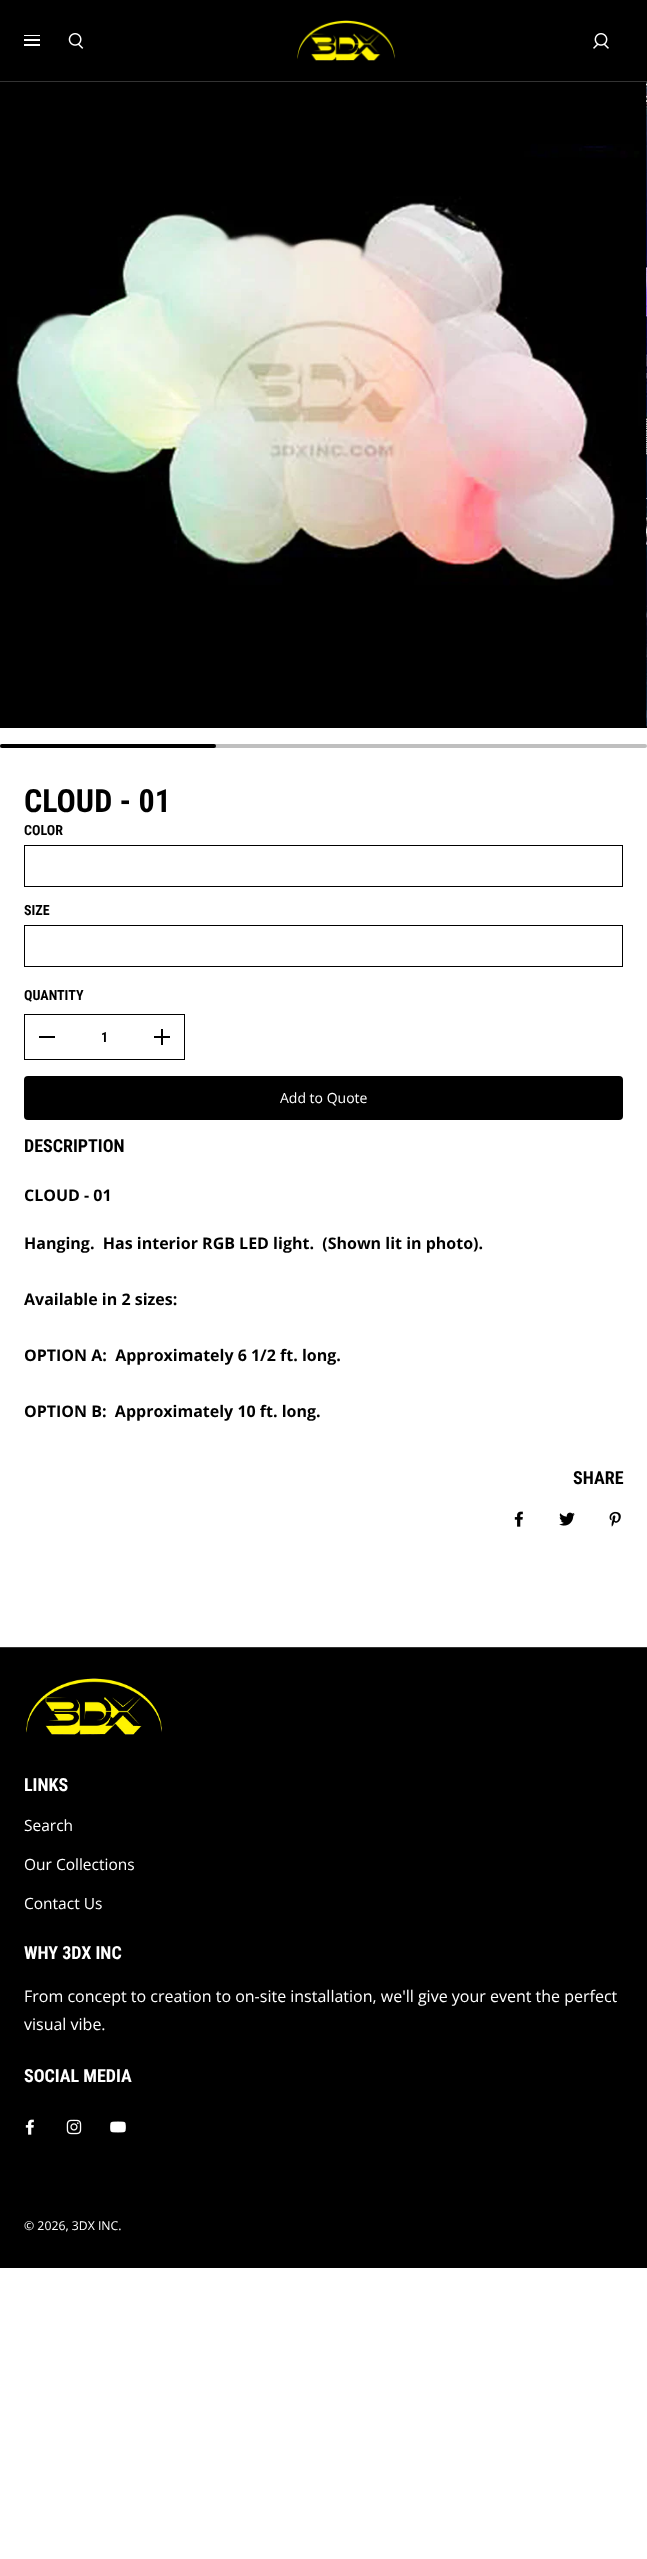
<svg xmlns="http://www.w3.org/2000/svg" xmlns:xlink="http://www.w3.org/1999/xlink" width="647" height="2559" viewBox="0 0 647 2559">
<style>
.cls-1{font:bold 32px Roboto Condensed;fill:#000000}
.cls-2{font:bold 14px Roboto Condensed;fill:#000000}
.cls-3{font:14px Open Sans;fill:#ffffff}
.cls-4{font:bold 18px Roboto Condensed;fill:#000000}
.cls-5{font:bold 16px Open Sans;fill:#000000}
.cls-6{font:bold 18px Roboto Condensed;fill:#ffffff}
.cls-7{font:15.5px Open Sans;fill:#ffffff}
.cls-8{font:16px Open Sans;fill:#ffffff}
.cls-9{font:12.25px Open Sans;fill:#ffffff}
</style>
<rect width="100%" height="100%" fill="#ffffff"/>
<rect fill="#000000" x="0" y="0" width="647" height="81"/>
<rect fill="#333333" x="0" y="81" width="647" height="1"/>
<rect fill="#ffffff" x="24" y="35" width="16" height="1"/>
<rect fill="#ffffff" x="24" y="39" width="16" height="2"/>
<rect fill="#ffffff" x="24" y="44" width="16" height="2"/>
<image xlink:href="image0.png" x="68" y="33" width="16" height="16"/>
<image xlink:href="image1.png" x="297" y="20" width="99" height="41"/>
<image xlink:href="image2.png" x="593" y="33" width="16" height="16"/>
<image xlink:href="image3.png" x="0" y="82" width="646" height="646"/>
<image xlink:href="image4.png" x="646" y="82" width="1" height="646"/>
<rect fill="#bfbfbf" x="0" y="744" width="647" height="4" rx="2"/>
<rect fill="#000000" x="0" y="744" width="216" height="4" rx="2"/>
<rect fill="none" stroke="#000000" x="24.5" y="845.5" width="598" height="41"/>
<rect fill="none" stroke="#000000" x="24.5" y="925.5" width="598" height="41"/>
<rect fill="none" stroke="#000000" x="24.5" y="1014.5" width="160" height="45"/>
<rect fill="#000000" x="39" y="1036" width="16" height="2"/>
<rect fill="#000000" x="154" y="1036" width="16" height="2"/>
<rect fill="#000000" x="161" y="1029" width="2" height="16"/>
<rect fill="#000000" x="24" y="1076" width="599" height="44" rx="4"/>
<image xlink:href="image5.png" x="514" y="1511" width="9" height="16"/>
<image xlink:href="image6.png" x="559" y="1512" width="16" height="14"/>
<image xlink:href="image7.png" x="609" y="1511" width="12" height="16"/>
<rect fill="#000000" x="0" y="1648" width="647" height="620"/>
<rect fill="#333333" x="0" y="1647" width="647" height="1"/>
<image xlink:href="image8.png" x="26" y="1678" width="136" height="57"/>
<image xlink:href="image9.png" x="25" y="2119" width="9" height="16"/>
<image xlink:href="image10.png" x="66" y="2119" width="16" height="16"/>
<image xlink:href="image11.png" x="110" y="2121" width="16" height="12"/>
<text class="cls-1" x="24" y="812">CLOUD - 01</text>
<text class="cls-2" x="24" y="835">COLOR</text>
<text class="cls-2" x="24" y="915">SIZE</text>
<text class="cls-2" x="24" y="1000">QUANTITY</text>
<text class="cls-2" x="101" y="1042">1</text>
<text class="cls-3" x="280" y="1103">Add to Quote</text>
<text class="cls-4" x="24" y="1152">DESCRIPTION</text>
<text class="cls-5" x="24" y="1201">CLOUD - 01</text>
<text class="cls-5" xml:space="preserve" x="24" y="1249">Hanging.  Has interior RGB LED light.  (Shown lit in photo).</text>
<text class="cls-5" x="24" y="1305">Available in 2 sizes:</text>
<text class="cls-5" xml:space="preserve" x="24" y="1361">OPTION A:  Approximately 6 1/2 ft. long.</text>
<text class="cls-5" xml:space="preserve" x="24" y="1417">OPTION B:  Approximately 10 ft. long.</text>
<text class="cls-4" x="573" y="1484">SHARE</text>
<text class="cls-6" x="24" y="1791">LINKS</text>
<text class="cls-7" x="24" y="1831">Search</text>
<text class="cls-7" x="24" y="1870">Our Collections</text>
<text class="cls-7" x="24" y="1909">Contact Us</text>
<text class="cls-6" x="24" y="1959">WHY 3DX INC</text>
<text class="cls-8"><tspan x="24" y="2002">From concept to creation to on-site installation, we'll give your event the perfect</tspan><tspan x="24" y="2030">visual vibe.</tspan></text>
<text class="cls-6" x="24" y="2082">SOCIAL MEDIA</text>
<text class="cls-9" x="24" y="2230">© 2026, 3DX INC.</text>
</svg>
